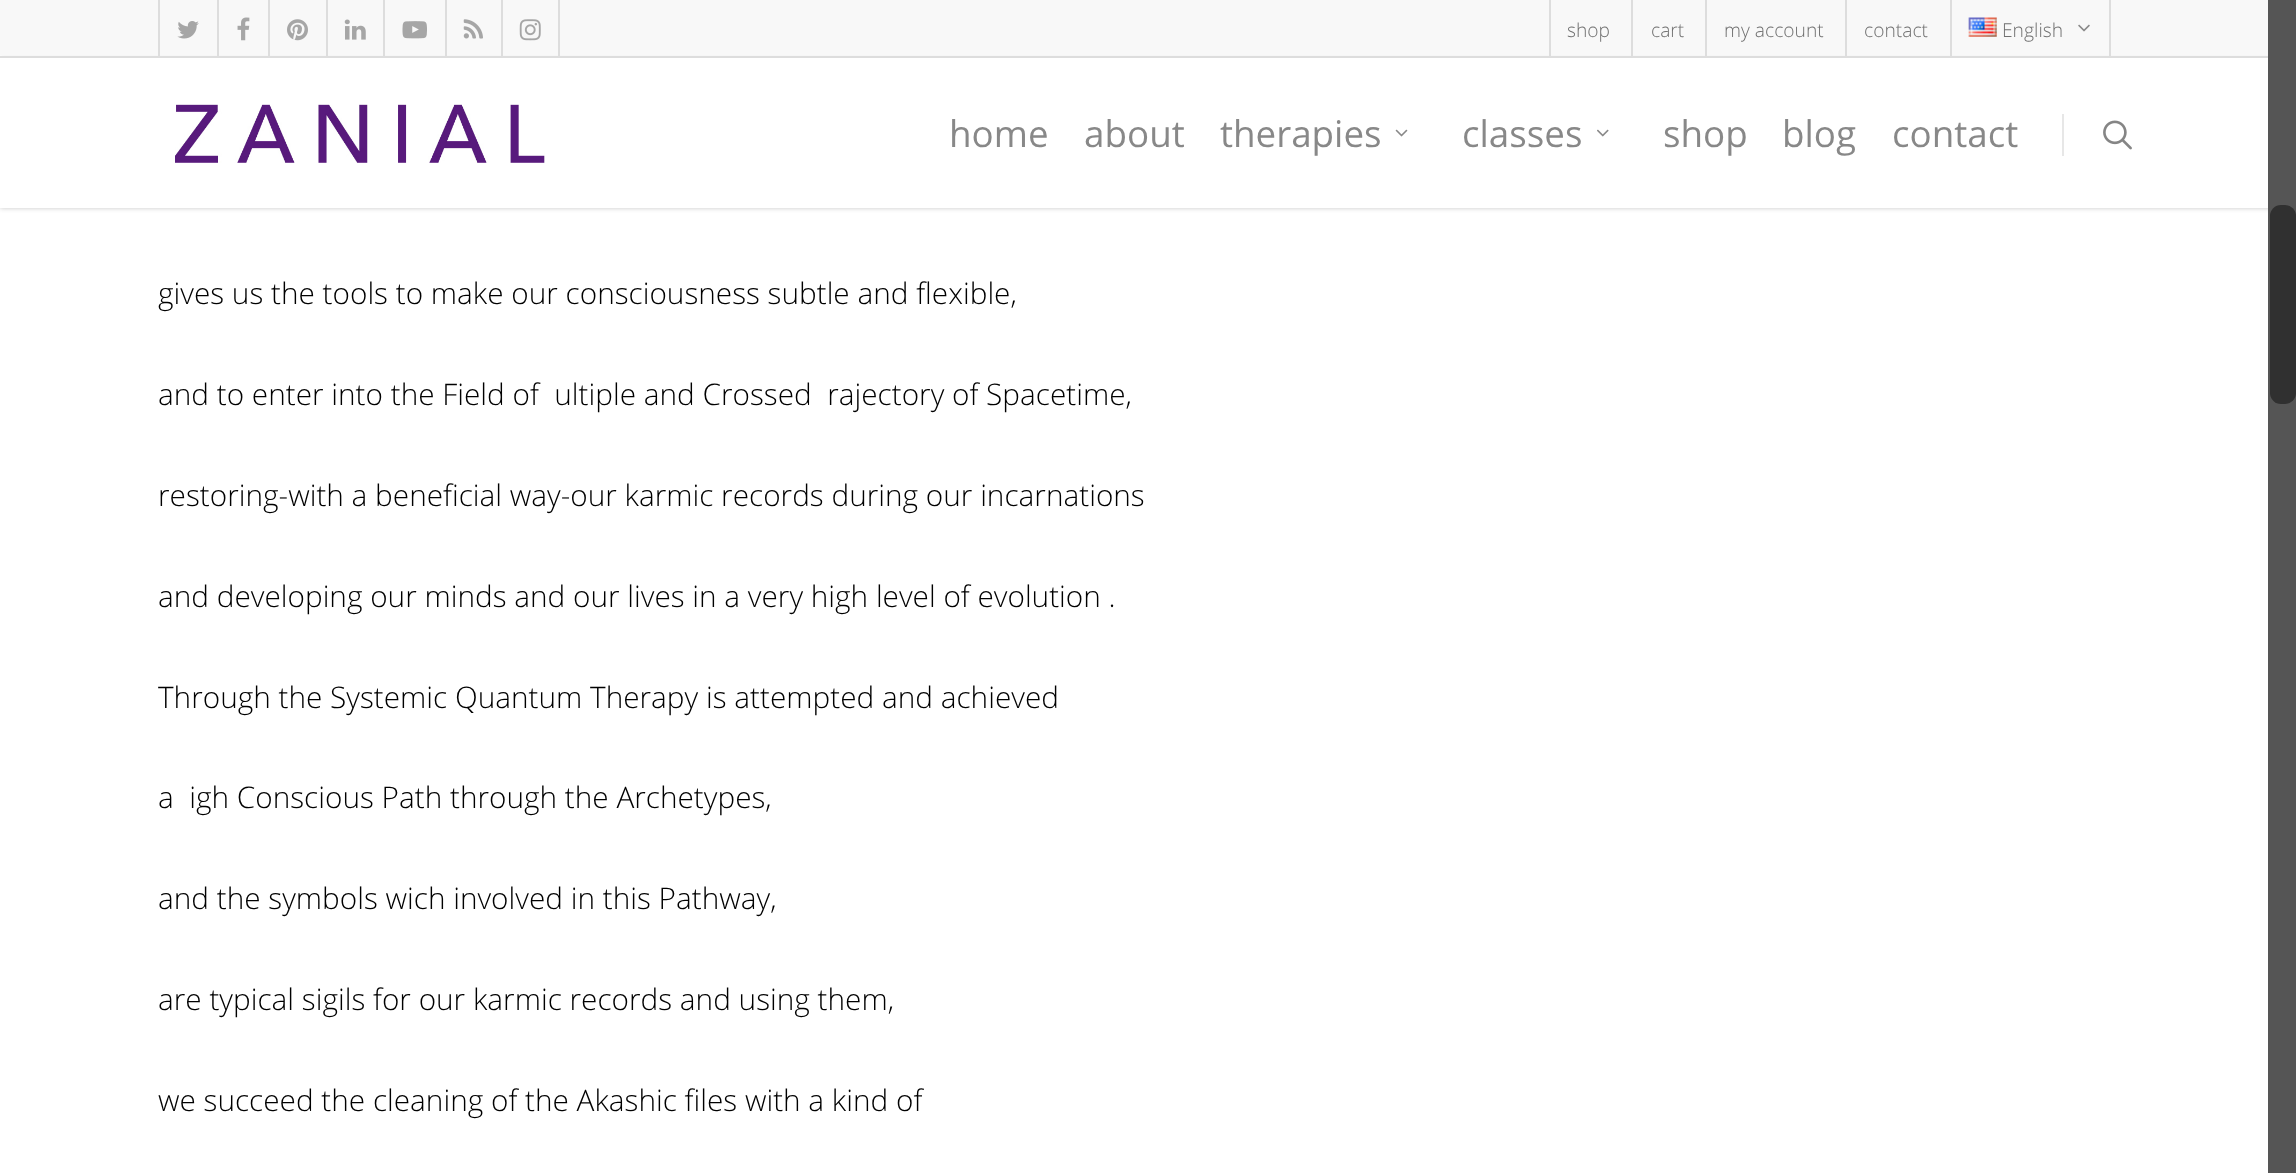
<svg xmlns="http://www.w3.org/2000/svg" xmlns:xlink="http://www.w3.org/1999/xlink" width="2296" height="1173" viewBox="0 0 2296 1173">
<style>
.cls-1{font:300 19.25px Open Sans;fill:#707070}
.cls-2{font:36.75px Open Sans;fill:#888888}
.cls-3{font:300 29.75px Open Sans;fill:#000000}
</style>
<rect width="100%" height="100%" fill="#ffffff"/>
<rect fill="#000000" fill-opacity="0.22" filter="blur(2.5px)" x="0" y="58" width="2296" height="150"/>
<rect fill="#f8f8f8" x="0" y="0" width="2268" height="55"/>
<rect fill="#dddddd" x="0" y="56" width="2268" height="2"/>
<rect fill="#dddddd" x="158" y="0" width="2" height="56"/>
<image xlink:href="image0.png" x="177" y="21" width="22" height="18"/>
<rect fill="#dddddd" x="217" y="0" width="2" height="56"/>
<image xlink:href="image1.png" x="237" y="17" width="13" height="24"/>
<rect fill="#dddddd" x="268" y="0" width="2" height="56"/>
<image xlink:href="image2.png" x="287" y="19" width="21" height="22"/>
<rect fill="#dddddd" x="326" y="0" width="2" height="56"/>
<image xlink:href="image3.png" x="344" y="19" width="22" height="21"/>
<rect fill="#dddddd" x="383" y="0" width="2" height="56"/>
<image xlink:href="image4.png" x="402" y="21" width="25" height="18"/>
<rect fill="#dddddd" x="445" y="0" width="2" height="56"/>
<image xlink:href="image5.png" x="463" y="19" width="20" height="20"/>
<rect fill="#dddddd" x="558" y="0" width="2" height="56"/>
<rect fill="#dddddd" x="501" y="0" width="2" height="56"/>
<image xlink:href="image6.png" x="519" y="19" width="22" height="22"/>
<rect fill="#dddddd" x="1549" y="0" width="2" height="58"/>
<rect fill="#dddddd" x="1631" y="0" width="2" height="58"/>
<rect fill="#dddddd" x="1705" y="0" width="2" height="58"/>
<rect fill="#dddddd" x="1845" y="0" width="2" height="58"/>
<rect fill="#dddddd" x="2109" y="0" width="2" height="58"/>
<rect fill="#dddddd" x="1950" y="0" width="2" height="58"/>
<image xlink:href="image7.png" x="1968" y="17" width="29" height="20"/>
<image xlink:href="image8.png" x="2078" y="24" width="12" height="8"/>
<rect fill="#555555" x="2268" y="0" width="28" height="1173"/>
<rect fill="#303030" x="2270" y="205" width="26" height="199" rx="11"/>
<rect fill="#ffffff" x="0" y="58" width="2268" height="150"/>
<image xlink:href="image9.png" x="175" y="104" width="370" height="59"/>
<image xlink:href="image10.png" x="1395" y="129" width="13" height="8"/>
<image xlink:href="image11.png" x="1597" y="129" width="12" height="8"/>
<rect fill="#e7e7e7" x="2062" y="114" width="2" height="42"/>
<image xlink:href="image12.png" x="2103" y="120" width="29" height="30"/>
<text class="cls-1" x="1567" y="37">shop</text>
<text class="cls-1" x="1651" y="37">cart</text>
<text class="cls-1" x="1724" y="37">my account</text>
<text class="cls-1" x="1864" y="37">contact</text>
<text class="cls-1" x="2002" y="37">English</text>
<text class="cls-2" x="949" y="147">home</text>
<text class="cls-2" x="1084" y="147">about</text>
<text class="cls-2" x="1220" y="147">therapies</text>
<text class="cls-2" x="1462" y="147">classes</text>
<text class="cls-2" x="1663" y="147">shop</text>
<text class="cls-2" x="1782" y="147">blog</text>
<text class="cls-2" x="1892" y="147">contact</text>
<text class="cls-3" x="158" y="304">gives us the tools to make our consciousness subtle and flexible,</text>
<text class="cls-3" xml:space="preserve" x="158" y="405">and to enter into the Field of  ultiple and Crossed  rajectory of Spacetime,</text>
<text class="cls-3" x="158" y="506">restoring-with a beneficial way-our karmic records during our incarnations</text>
<text class="cls-3" x="158" y="607">and developing our minds and our lives in a very high level of evolution .</text>
<text class="cls-3" x="158" y="708">Through the Systemic Quantum Therapy is attempted and achieved</text>
<text class="cls-3" xml:space="preserve" x="158" y="808">a  igh Conscious Path through the Archetypes,</text>
<text class="cls-3" x="158" y="909">and the symbols wich involved in this Pathway,</text>
<text class="cls-3" x="158" y="1010">are typical sigils for our karmic records and using them,</text>
<text class="cls-3" x="158" y="1111">we succeed the cleaning of the Akashic files with a kind of</text>
</svg>
